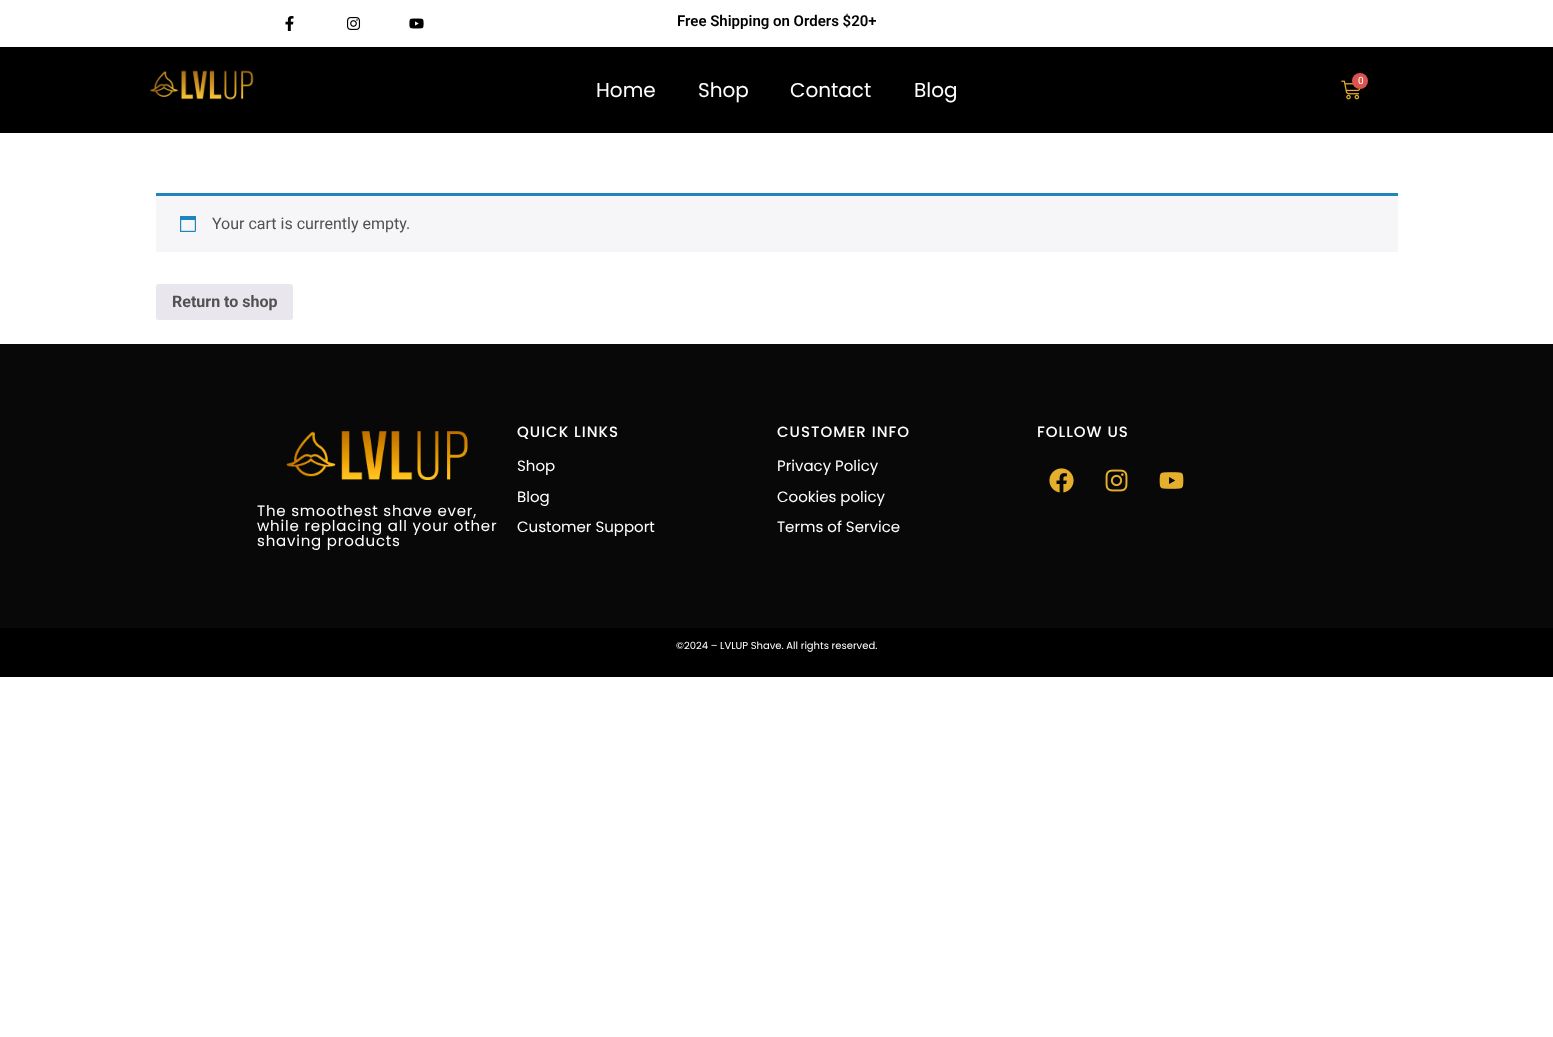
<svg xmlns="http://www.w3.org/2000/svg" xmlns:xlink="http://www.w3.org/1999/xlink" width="1553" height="1037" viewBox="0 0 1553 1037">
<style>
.cls-1{font:600 15px Roboto;fill:#000000}
.cls-2{font:10px Roboto;fill:#ffffff}
.cls-3{font:20px Poppins;fill:#ffffff}
.cls-4{font:16px Roboto;fill:#515151}
.cls-5{font:bold 16px Roboto;fill:#515151}
.cls-6{font:500 15px Poppins;letter-spacing:1px;fill:#ffffff}
.cls-7{font:15px Poppins;fill:#ffffff}
.cls-8{font:15px Poppins;letter-spacing:0.8px;fill:#ffffff}
.cls-9{font:10px Poppins;fill:#ffffff}
</style>
<rect width="100%" height="100%" fill="#ffffff"/>
<image xlink:href="image0.png" x="285" y="16" width="9" height="15"/>
<image xlink:href="image1.png" x="347" y="17" width="14" height="13"/>
<image xlink:href="image2.png" x="409" y="18" width="15" height="11"/>
<rect fill="#000000" x="0" y="47" width="1553" height="86"/>
<image xlink:href="image3.png" x="149" y="70" width="105" height="30"/>
<image xlink:href="image4.png" x="1341" y="80" width="20" height="20"/>
<circle fill="#d9534f" cx="1360" cy="81" r="8"/>
<rect fill="#f6f5f8" x="156" y="196" width="1242" height="56"/>
<rect fill="#1e85be" x="156" y="193" width="1242" height="3"/>
<image xlink:href="image5.png" x="180" y="216" width="16" height="16"/>
<rect fill="#e9e6ed" x="156" y="284" width="137" height="36" rx="3"/>
<rect fill="#080808" x="0" y="344" width="1553" height="284"/>
<image xlink:href="image6.png" x="1049" y="468" width="25" height="25"/>
<image xlink:href="image7.png" x="1105" y="469" width="23" height="23"/>
<image xlink:href="image8.png" x="1159" y="472" width="25" height="17"/>
<image xlink:href="image9.png" x="286" y="431" width="182" height="49"/>
<rect fill="#000000" x="0" y="628" width="1553" height="49"/>
<text class="cls-1" x="677" y="26">Free Shipping on Orders $20+</text>
<text class="cls-2" x="1358" y="84">0</text>
<text class="cls-3" x="596" y="97">Home</text>
<text class="cls-3" x="698" y="97">Shop</text>
<text class="cls-3" x="790" y="97">Contact</text>
<text class="cls-3" x="914" y="97">Blog</text>
<text class="cls-4" x="212" y="229">Your cart is currently empty.</text>
<text class="cls-5" x="172" y="307">Return to shop</text>
<text class="cls-6" x="517" y="437">QUICK LINKS</text>
<text class="cls-7" x="517" y="471">Shop</text>
<text class="cls-7" x="517" y="502">Blog</text>
<text class="cls-7" x="517" y="532">Customer Support</text>
<text class="cls-6" x="777" y="437">CUSTOMER INFO</text>
<text class="cls-7" x="777" y="471">Privacy Policy</text>
<text class="cls-7" x="777" y="502">Cookies policy</text>
<text class="cls-7" x="777" y="532">Terms of Service</text>
<text class="cls-6" x="1037" y="437">FOLLOW US</text>
<text class="cls-8"><tspan x="257" y="516">The smoothest shave ever,</tspan><tspan x="257" y="531">while replacing all your other</tspan><tspan x="257" y="546">shaving products</tspan></text>
<text class="cls-9" x="676" y="649">©2024 – LVLUP Shave. All rights reserved.</text>
</svg>
